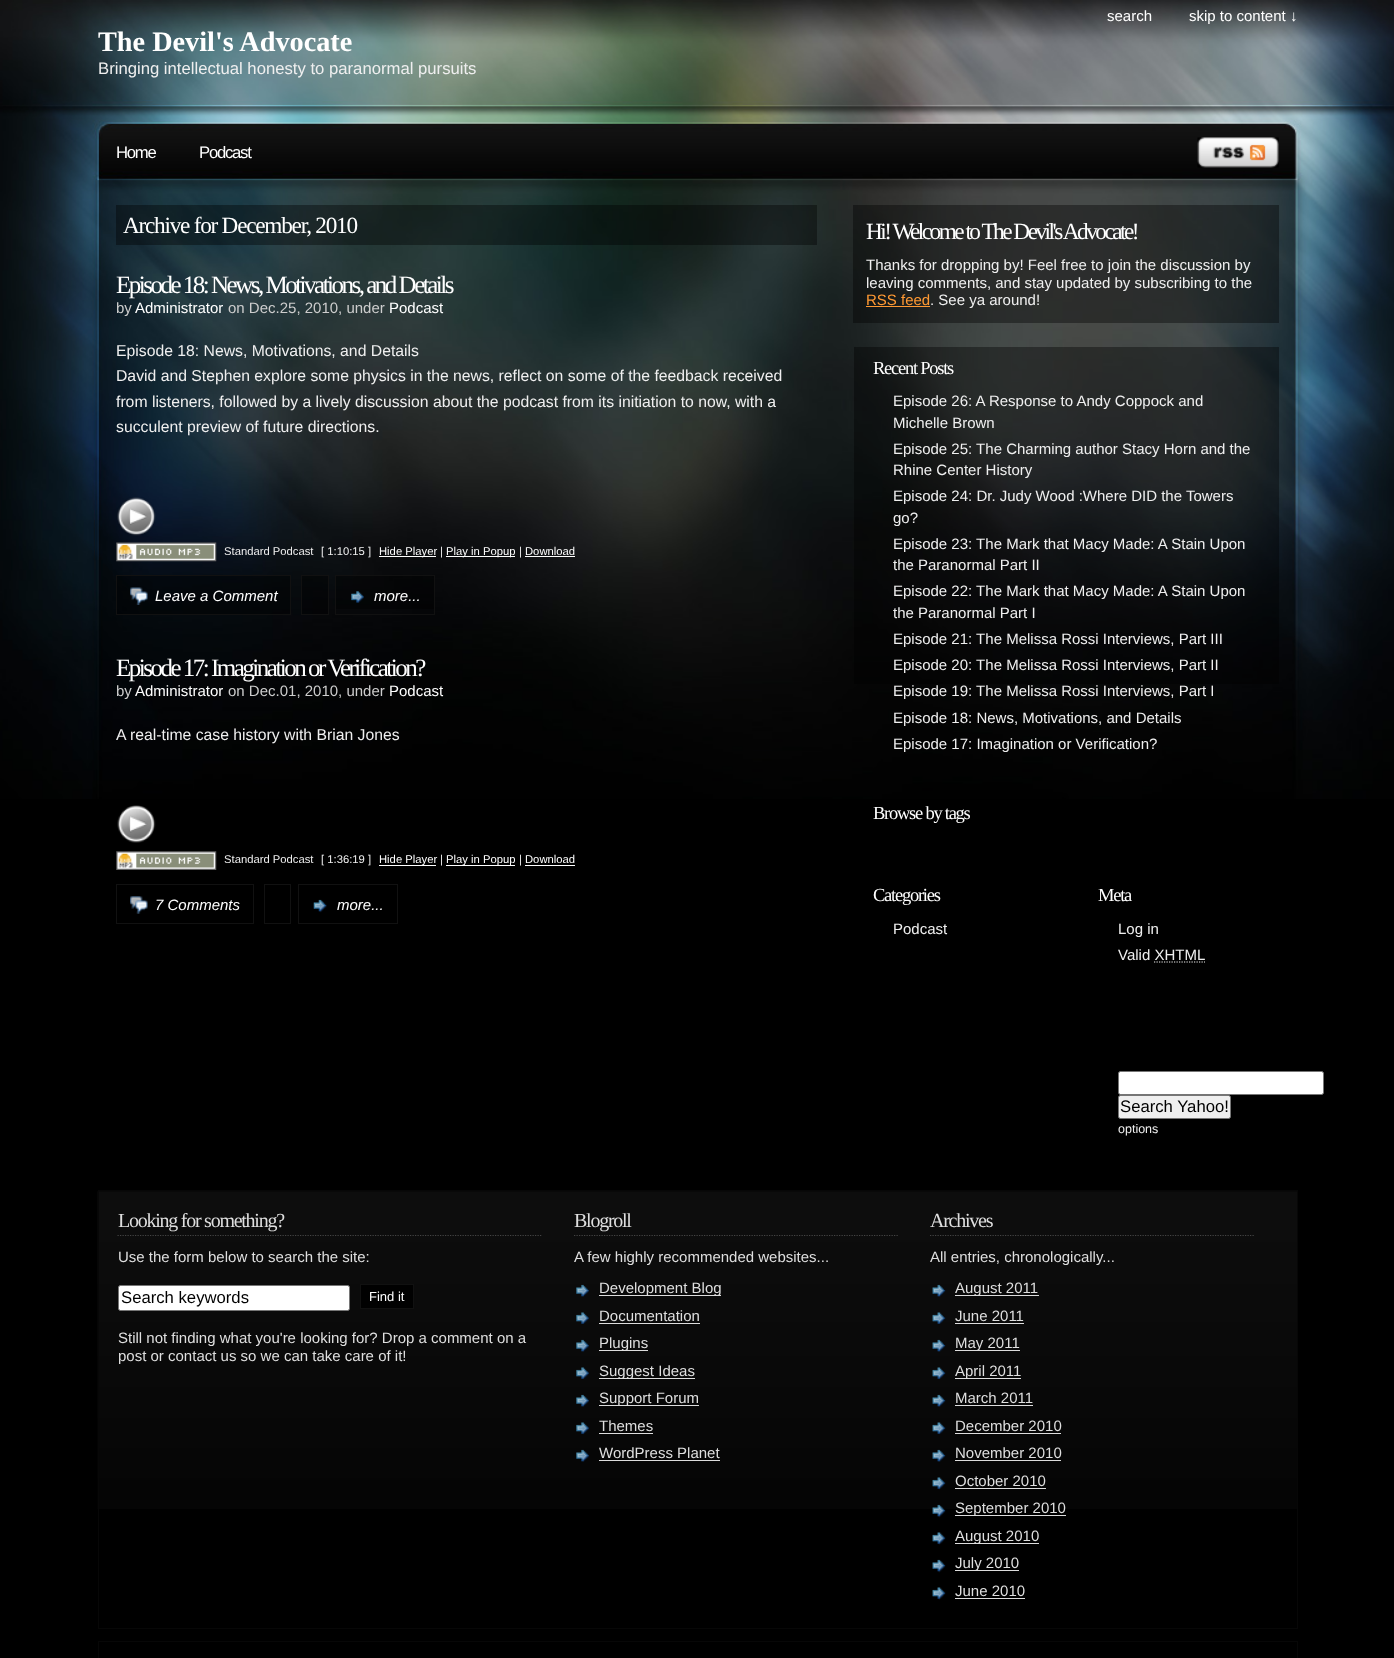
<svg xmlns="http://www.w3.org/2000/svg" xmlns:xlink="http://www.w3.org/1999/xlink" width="1394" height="1658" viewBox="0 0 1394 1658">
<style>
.cls-1{font:15px Liberation Sans;fill:#ffffff}
.cls-2{font:bold 28.25px Liberation Serif;fill:#ffffff}
.cls-3{font:16.7px Liberation Sans;fill:#efefef}
.cls-4{font:16.7px Liberation Sans;letter-spacing:-1.25px;fill:#ffffff}
.cls-5{font:23.25px Liberation Serif;letter-spacing:-1.25px;fill:#ffffff}
.cls-6{font:25px Liberation Serif;letter-spacing:-2.5px;fill:#ffffff}
.cls-7{font:15px Liberation Sans;fill:#cdcdcd}
.cls-8{font:15.75px Liberation Sans;fill:#efefef}
.cls-9{font:11.25px Liberation Sans;fill:#efefef}
.cls-10{font:11.25px Liberation Sans;fill:#ffffff}
.cls-11{font:italic 15px Liberation Sans;fill:#ffffff}
.cls-12{font:23.25px Liberation Serif;letter-spacing:-2.5px;fill:#ffffff}
.cls-13{font:15px Liberation Sans;fill:#efefef}
.cls-14{font:15px Liberation Sans;fill:#ff9933}
.cls-15{font:18.5px Liberation Serif;letter-spacing:-1.25px;fill:#ffffff}
.cls-16{font:16.7px Liberation Sans;fill:#000000}
.cls-17{font:12.5px Liberation Sans;fill:#efefef}
.cls-18{font:20px Liberation Serif;letter-spacing:-1.25px;fill:#dfdfdf}
.cls-19{font:15px Liberation Sans;fill:#dfdfdf}
.cls-20{font:13px Liberation Sans;fill:#ffffff}
</style>
<rect width="100%" height="100%" fill="#000000"/>
<image xlink:href="image0.png" x="0" y="0" width="1394" height="799"/>
<image xlink:href="image1.png" x="1197" y="137" width="82" height="31"/>
<rect fill="#000000" fill-opacity="0.38" x="116" y="205" width="701" height="40"/>
<image xlink:href="image2.png" x="117" y="497" width="39" height="39"/>
<image xlink:href="image3.png" x="116" y="542" width="101" height="20"/>
<rect fill="#ffffff" x="379" y="556" width="57" height="1"/>
<rect fill="#ffffff" x="446" y="556" width="69" height="1"/>
<rect fill="#ffffff" x="525" y="556" width="50" height="1"/>
<rect fill="#000000" fill-opacity="0.38" stroke="#111111" x="116.5" y="575.5" width="174" height="39"/>
<image xlink:href="image4.png" x="130" y="587" width="18" height="18"/>
<rect fill="#000000" fill-opacity="0.38" stroke="#111111" x="301.5" y="575.5" width="27" height="39"/>
<rect fill="#000000" fill-opacity="0.38" x="336" y="576" width="98" height="33"/>
<rect fill="none" stroke="#111111" x="335.5" y="575.5" width="99" height="39"/>
<image xlink:href="image5.png" x="351" y="591" width="13" height="12"/>
<image xlink:href="image6.png" x="117" y="805" width="39" height="38"/>
<image xlink:href="image7.png" x="116" y="851" width="101" height="19"/>
<rect fill="#ffffff" x="379" y="865" width="57" height="1"/>
<rect fill="#ffffff" x="446" y="865" width="69" height="1"/>
<rect fill="#ffffff" x="525" y="865" width="50" height="1"/>
<rect fill="none" stroke="#111111" x="116.5" y="884.5" width="137" height="39"/>
<image xlink:href="image8.png" x="130" y="896" width="18" height="18"/>
<rect fill="none" stroke="#111111" x="264.5" y="884.5" width="26" height="39"/>
<rect fill="none" stroke="#111111" x="298.5" y="884.5" width="99" height="39"/>
<image xlink:href="image9.png" x="313" y="899" width="14" height="14"/>
<rect fill="#000000" fill-opacity="0.38" x="853" y="205" width="426" height="118"/>
<rect fill="#ff9933" x="866" y="306" width="64" height="1"/>
<rect fill="#000000" fill-opacity="0.38" x="854" y="347" width="425" height="337"/>
<path fill="none" stroke="#eeeeee" stroke-width="1.2" stroke-dasharray="1.25 1.25" d="M1154 962H1205"/>
<rect fill="#ffffff" stroke="#767676" x="1118.5" y="1071.5" width="205" height="23" rx="2"/>
<rect fill="#efefef" stroke="#767676" x="1118.5" y="1095.5" width="112" height="23" rx="2"/>
<image xlink:href="image10.png" x="97" y="1191" width="1200" height="318"/>
<rect fill="none" stroke="#070707" x="98.5" y="1190.5" width="1199" height="438"/>
<path fill="none" stroke="#444444" stroke-width="1.2" stroke-dasharray="1.25 1.25" d="M117.5 1235.5H542.5"/>
<rect fill="#ffffff" stroke="#767676" x="118.5" y="1285.5" width="231" height="25" rx="2"/>
<rect fill="#010101" stroke="#111111" x="360.5" y="1284.5" width="53" height="24"/>
<path fill="none" stroke="#444444" stroke-width="1.2" stroke-dasharray="1.25 1.25" d="M574 1235.5H899"/>
<image xlink:href="image11.png" x="576" y="1284" width="13" height="13"/>
<rect fill="#dddddd" x="599" y="1295" width="122" height="1"/>
<image xlink:href="image12.png" x="576" y="1312" width="13" height="12"/>
<rect fill="#dddddd" x="599" y="1323" width="101" height="1"/>
<image xlink:href="image13.png" x="576" y="1339" width="13" height="13"/>
<rect fill="#dddddd" x="599" y="1350" width="49" height="1"/>
<image xlink:href="image14.png" x="576" y="1367" width="13" height="12"/>
<rect fill="#dddddd" x="599" y="1378" width="96" height="1"/>
<image xlink:href="image15.png" x="576" y="1394" width="13" height="13"/>
<rect fill="#dddddd" x="599" y="1405" width="100" height="1"/>
<image xlink:href="image16.png" x="576" y="1422" width="13" height="13"/>
<rect fill="#dddddd" x="599" y="1433" width="54" height="1"/>
<image xlink:href="image17.png" x="576" y="1449" width="13" height="13"/>
<rect fill="#dddddd" x="599" y="1460" width="121" height="1"/>
<path fill="none" stroke="#444444" stroke-width="1.2" stroke-dasharray="1.25 1.25" d="M930 1235.5H1255"/>
<image xlink:href="image18.png" x="932" y="1284" width="14" height="13"/>
<rect fill="#dddddd" x="955" y="1295" width="84" height="1"/>
<image xlink:href="image19.png" x="932" y="1312" width="14" height="12"/>
<rect fill="#dddddd" x="955" y="1323" width="69" height="1"/>
<image xlink:href="image20.png" x="932" y="1339" width="14" height="13"/>
<rect fill="#dddddd" x="955" y="1350" width="65" height="1"/>
<image xlink:href="image21.png" x="932" y="1367" width="14" height="12"/>
<rect fill="#dddddd" x="955" y="1378" width="66" height="1"/>
<image xlink:href="image22.png" x="932" y="1394" width="14" height="13"/>
<rect fill="#dddddd" x="955" y="1405" width="78" height="1"/>
<image xlink:href="image23.png" x="932" y="1422" width="14" height="13"/>
<rect fill="#dddddd" x="955" y="1433" width="106" height="1"/>
<image xlink:href="image24.png" x="932" y="1449" width="14" height="13"/>
<rect fill="#dddddd" x="955" y="1460" width="106" height="1"/>
<image xlink:href="image25.png" x="932" y="1477" width="14" height="13"/>
<rect fill="#dddddd" x="955" y="1488" width="91" height="1"/>
<image xlink:href="image26.png" x="932" y="1504" width="14" height="14"/>
<rect fill="#dddddd" x="955" y="1515" width="111" height="1"/>
<image xlink:href="image27.png" x="932" y="1532" width="14" height="13"/>
<rect fill="#dddddd" x="955" y="1543" width="84" height="1"/>
<image xlink:href="image28.png" x="932" y="1559" width="14" height="14"/>
<rect fill="#dddddd" x="955" y="1570" width="64" height="1"/>
<image xlink:href="image27.png" x="932" y="1587" width="14" height="13"/>
<rect fill="#dddddd" x="955" y="1598" width="70" height="1"/>
<rect fill="none" stroke="#070707" x="98.5" y="1641.5" width="1199" height="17"/>
<text class="cls-1" x="1107" y="21">search</text>
<text class="cls-1" x="1189" y="21">skip to content ↓</text>
<text class="cls-2" x="98" y="51">The Devil's Advocate</text>
<text class="cls-3" x="98" y="74">Bringing intellectual honesty to paranormal pursuits</text>
<text class="cls-4" x="116" y="158">Home</text>
<text class="cls-4" x="199" y="158">Podcast</text>
<text class="cls-5" x="123" y="233">Archive for December, 2010</text>
<text class="cls-6" x="116" y="293">Episode 18: News, Motivations, and Details</text>
<text class="cls-7" x="116" y="313">by</text>
<text class="cls-1" x="135" y="313">Administrator</text>
<text class="cls-7" x="228" y="313">on Dec.25, 2010, under</text>
<text class="cls-1" x="389" y="313">Podcast</text>
<text class="cls-8"><tspan x="116" y="356">Episode 18: News, Motivations, and Details</tspan><tspan x="116" y="381">David and Stephen explore some physics in the news, reflect on some of the feedback received</tspan><tspan x="116" y="407">from listeners, followed by a lively discussion about the podcast from its initiation to now, with a</tspan><tspan x="116" y="432">succulent preview of future directions.</tspan></text>
<text class="cls-9" x="224" y="555">Standard Podcast</text>
<text class="cls-9" x="321" y="555">[ 1:10:15 ]</text>
<text class="cls-10" x="379" y="555">Hide Player</text>
<text class="cls-9" x="440" y="555">|</text>
<text class="cls-10" x="446" y="555">Play in Popup</text>
<text class="cls-9" x="519" y="555">|</text>
<text class="cls-10" x="525" y="555">Download</text>
<text class="cls-11" x="155" y="601">Leave a Comment</text>
<text class="cls-11" x="374" y="601">more...</text>
<text class="cls-6" x="116" y="676">Episode 17: Imagination or Verification?</text>
<text class="cls-7" x="116" y="696">by</text>
<text class="cls-1" x="135" y="696">Administrator</text>
<text class="cls-7" x="228" y="696">on Dec.01, 2010, under</text>
<text class="cls-1" x="389" y="696">Podcast</text>
<text class="cls-8" x="116" y="740">A real-time case history with Brian Jones</text>
<text class="cls-9" x="224" y="863">Standard Podcast</text>
<text class="cls-9" x="321" y="863">[ 1:36:19 ]</text>
<text class="cls-10" x="379" y="863">Hide Player</text>
<text class="cls-9" x="440" y="863">|</text>
<text class="cls-10" x="446" y="863">Play in Popup</text>
<text class="cls-9" x="519" y="863">|</text>
<text class="cls-10" x="525" y="863">Download</text>
<text class="cls-11" x="155" y="910">7 Comments</text>
<text class="cls-11" x="337" y="910">more...</text>
<text class="cls-12" x="866" y="239">Hi! Welcome to The Devil's Advocate!</text>
<text class="cls-13"><tspan x="866" y="270">Thanks for dropping by! Feel free to join the discussion by</tspan><tspan x="866" y="288">leaving comments, and stay updated by subscribing to the</tspan></text>
<text class="cls-14" x="866" y="305">RSS feed</text>
<text class="cls-13" x="930" y="305">. See ya around!</text>
<text class="cls-15" x="873" y="374">Recent Posts</text>
<text class="cls-13"><tspan x="893" y="406">Episode 26: A Response to Andy Coppock and</tspan><tspan x="893" y="428">Michelle Brown</tspan><tspan x="893" y="454">Episode 25: The Charming author Stacy Horn and the</tspan><tspan x="893" y="475">Rhine Center History</tspan><tspan x="893" y="501">Episode 24: Dr. Judy Wood :Where DID the Towers</tspan><tspan x="893" y="523">go?</tspan><tspan x="893" y="549">Episode 23: The Mark that Macy Made: A Stain Upon</tspan><tspan x="893" y="570">the Paranormal Part II</tspan><tspan x="893" y="596">Episode 22: The Mark that Macy Made: A Stain Upon</tspan><tspan x="893" y="618">the Paranormal Part I</tspan><tspan x="893" y="644">Episode 21: The Melissa Rossi Interviews, Part III</tspan><tspan x="893" y="670">Episode 20: The Melissa Rossi Interviews, Part II</tspan><tspan x="893" y="696">Episode 19: The Melissa Rossi Interviews, Part I</tspan><tspan x="893" y="723">Episode 18: News, Motivations, and Details</tspan><tspan x="893" y="749">Episode 17: Imagination or Verification?</tspan></text>
<text class="cls-15" x="873" y="819">Browse by tags</text>
<text class="cls-15" x="873" y="901">Categories</text>
<text class="cls-13" x="893" y="934">Podcast</text>
<text class="cls-15" x="1098" y="901">Meta</text>
<text class="cls-13"><tspan x="1118" y="934">Log in</tspan><tspan x="1118" y="960">Valid XHTML</tspan></text>
<text class="cls-16" x="1120" y="1112">Search Yahoo!</text>
<text class="cls-17" x="1118" y="1133">options</text>
<text class="cls-18" x="118" y="1227">Looking for something?</text>
<text class="cls-19" x="118" y="1262">Use the form below to search the site:</text>
<text class="cls-16" x="121" y="1303">Search keywords</text>
<text class="cls-20" x="369" y="1301">Find it</text>
<text class="cls-19"><tspan x="118" y="1343">Still not finding what you're looking for? Drop a comment on a</tspan><tspan x="118" y="1361">post or contact us so we can take care of it!</tspan></text>
<text class="cls-18" x="574" y="1227">Blogroll</text>
<text class="cls-19" x="574" y="1262">A few highly recommended websites...</text>
<text class="cls-19"><tspan x="599" y="1293">Development Blog</tspan><tspan x="599" y="1321">Documentation</tspan><tspan x="599" y="1348">Plugins</tspan><tspan x="599" y="1376">Suggest Ideas</tspan><tspan x="599" y="1403">Support Forum</tspan><tspan x="599" y="1431">Themes</tspan><tspan x="599" y="1458">WordPress Planet</tspan></text>
<text class="cls-18" x="930" y="1227">Archives</text>
<text class="cls-19" x="930" y="1262">All entries, chronologically...</text>
<text class="cls-19"><tspan x="955" y="1293">August 2011</tspan><tspan x="955" y="1321">June 2011</tspan><tspan x="955" y="1348">May 2011</tspan><tspan x="955" y="1376">April 2011</tspan><tspan x="955" y="1403">March 2011</tspan><tspan x="955" y="1431">December 2010</tspan><tspan x="955" y="1458">November 2010</tspan><tspan x="955" y="1486">October 2010</tspan><tspan x="955" y="1513">September 2010</tspan><tspan x="955" y="1541">August 2010</tspan><tspan x="955" y="1568">July 2010</tspan><tspan x="955" y="1596">June 2010</tspan></text>
</svg>
